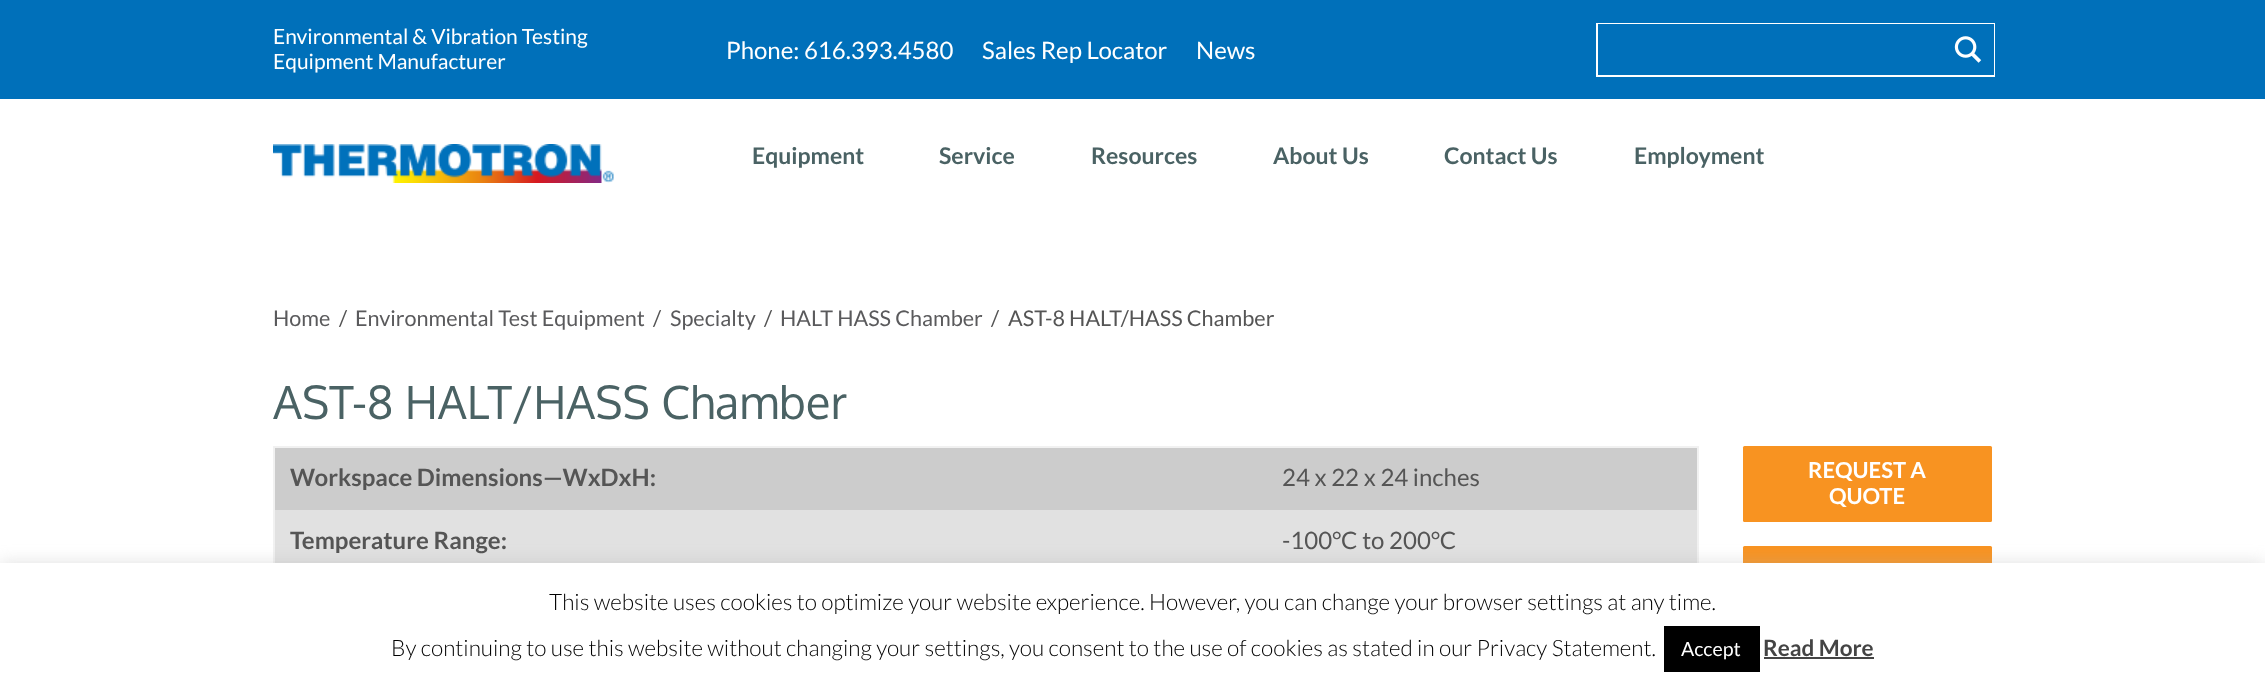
<svg xmlns="http://www.w3.org/2000/svg" xmlns:xlink="http://www.w3.org/1999/xlink" width="2265" height="690" viewBox="0 0 2265 690">
<style>
.cls-1{font:21px Lato;fill:#ffffff}
.cls-2{font:24px Lato;fill:#ffffff}
.cls-3{font:bold 23px Lato;fill:#4a6264}
.cls-4{font:21.6px Lato;fill:#5a5a5c}
.cls-5{font:21.6px Lato;fill:#555555}
.cls-6{font:45.6px Oxygen;fill:#4a6264}
.cls-7{font:bold 24px Lato;fill:#555555}
.cls-8{font:24px Lato;fill:#555555}
.cls-9{font:bold 22px Lato;fill:#ffffff}
.cls-10{font:300 22.5px Lato;fill:#000000}
.cls-11{font:19.5px Lato;fill:#ffffff}
.cls-12{font:bold 22.5px Lato;fill:#444444}
</style>
<rect width="100%" height="100%" fill="#ffffff"/>
<rect fill="#0070ba" x="0" y="0" width="2265" height="99"/>
<rect fill="none" stroke="#ffffff" stroke-width="2" x="1597" y="24" width="397" height="52"/>
<rect fill="#0070ba" x="1598" y="24" width="345" height="1"/>
<rect fill="#0070ba" x="1943" y="24" width="51" height="51"/>
<image xlink:href="image0.png" x="1954" y="36" width="28" height="27"/>
<image xlink:href="image1.png" x="273" y="144" width="341" height="39"/>
<rect fill="#f1f1f1" x="273" y="446" width="1425" height="2"/>
<rect fill="#f1f1f1" x="1697" y="446" width="2" height="117"/>
<rect fill="#f1f1f1" x="273" y="446" width="2" height="117"/>
<rect fill="#cccccc" x="275" y="448" width="1422" height="62"/>
<rect fill="#e1e1e1" x="275" y="510" width="1422" height="53"/>
<rect fill="#f89321" x="1743" y="446" width="249" height="76" rx="1.5"/>
<rect fill="#f89321" x="1743" y="546" width="249" height="104" rx="1.5"/>
<rect fill="#acabab" fill-opacity="0.3" filter="blur(7.5px)" x="0" y="561" width="2265" height="128"/>
<rect fill="#ffffff" x="0" y="563" width="2265" height="127"/>
<rect fill="#000000" x="1664" y="626" width="96" height="46"/>
<rect fill="#444444" x="1764" y="657" width="110" height="2"/>
<text class="cls-1"><tspan x="273" y="44">Environmental &amp; Vibration Testing</tspan><tspan x="273" y="69">Equipment Manufacturer</tspan></text>
<text class="cls-2" x="726" y="59">Phone: 616.393.4580</text>
<text class="cls-2" x="982" y="59">Sales Rep Locator</text>
<text class="cls-2" x="1196" y="59">News</text>
<text class="cls-3" x="752" y="164">Equipment</text>
<text class="cls-3" x="939" y="164">Service</text>
<text class="cls-3" x="1091" y="164">Resources</text>
<text class="cls-3" x="1273" y="164">About Us</text>
<text class="cls-3" x="1444" y="164">Contact Us</text>
<text class="cls-3" x="1634" y="164">Employment</text>
<text class="cls-4" x="273" y="326">Home</text>
<text class="cls-5" x="339" y="326">/</text>
<text class="cls-4" x="355" y="326">Environmental Test Equipment</text>
<text class="cls-5" x="653" y="326">/</text>
<text class="cls-4" x="670" y="326">Specialty</text>
<text class="cls-5" x="764" y="326">/</text>
<text class="cls-4" x="780" y="326">HALT HASS Chamber</text>
<text class="cls-5" x="991" y="326">/</text>
<text class="cls-5" x="1008" y="326">AST-8 HALT/HASS Chamber</text>
<text class="cls-6" x="273" y="419">AST-8 HALT/HASS Chamber</text>
<text class="cls-7" x="290" y="486">Workspace Dimensions—WxDxH:</text>
<text class="cls-8" x="1282" y="486">24 x 22 x 24 inches</text>
<text class="cls-7" x="290" y="549">Temperature Range:</text>
<text class="cls-8" x="1282" y="549">-100°C to 200°C</text>
<text class="cls-9" x="1808" y="478">REQUEST A</text>
<text class="cls-9" x="1829" y="504">QUOTE</text>
<text class="cls-10" x="549" y="610">This website uses cookies to optimize your website experience. However, you can change your browser settings at any time.</text>
<text class="cls-10" x="391" y="656">By continuing to use this website without changing your settings, you consent to the use of cookies as stated in our Privacy Statement.</text>
<text class="cls-11" x="1681" y="656">Accept</text>
<text class="cls-12" x="1763" y="656">Read More</text>
</svg>
